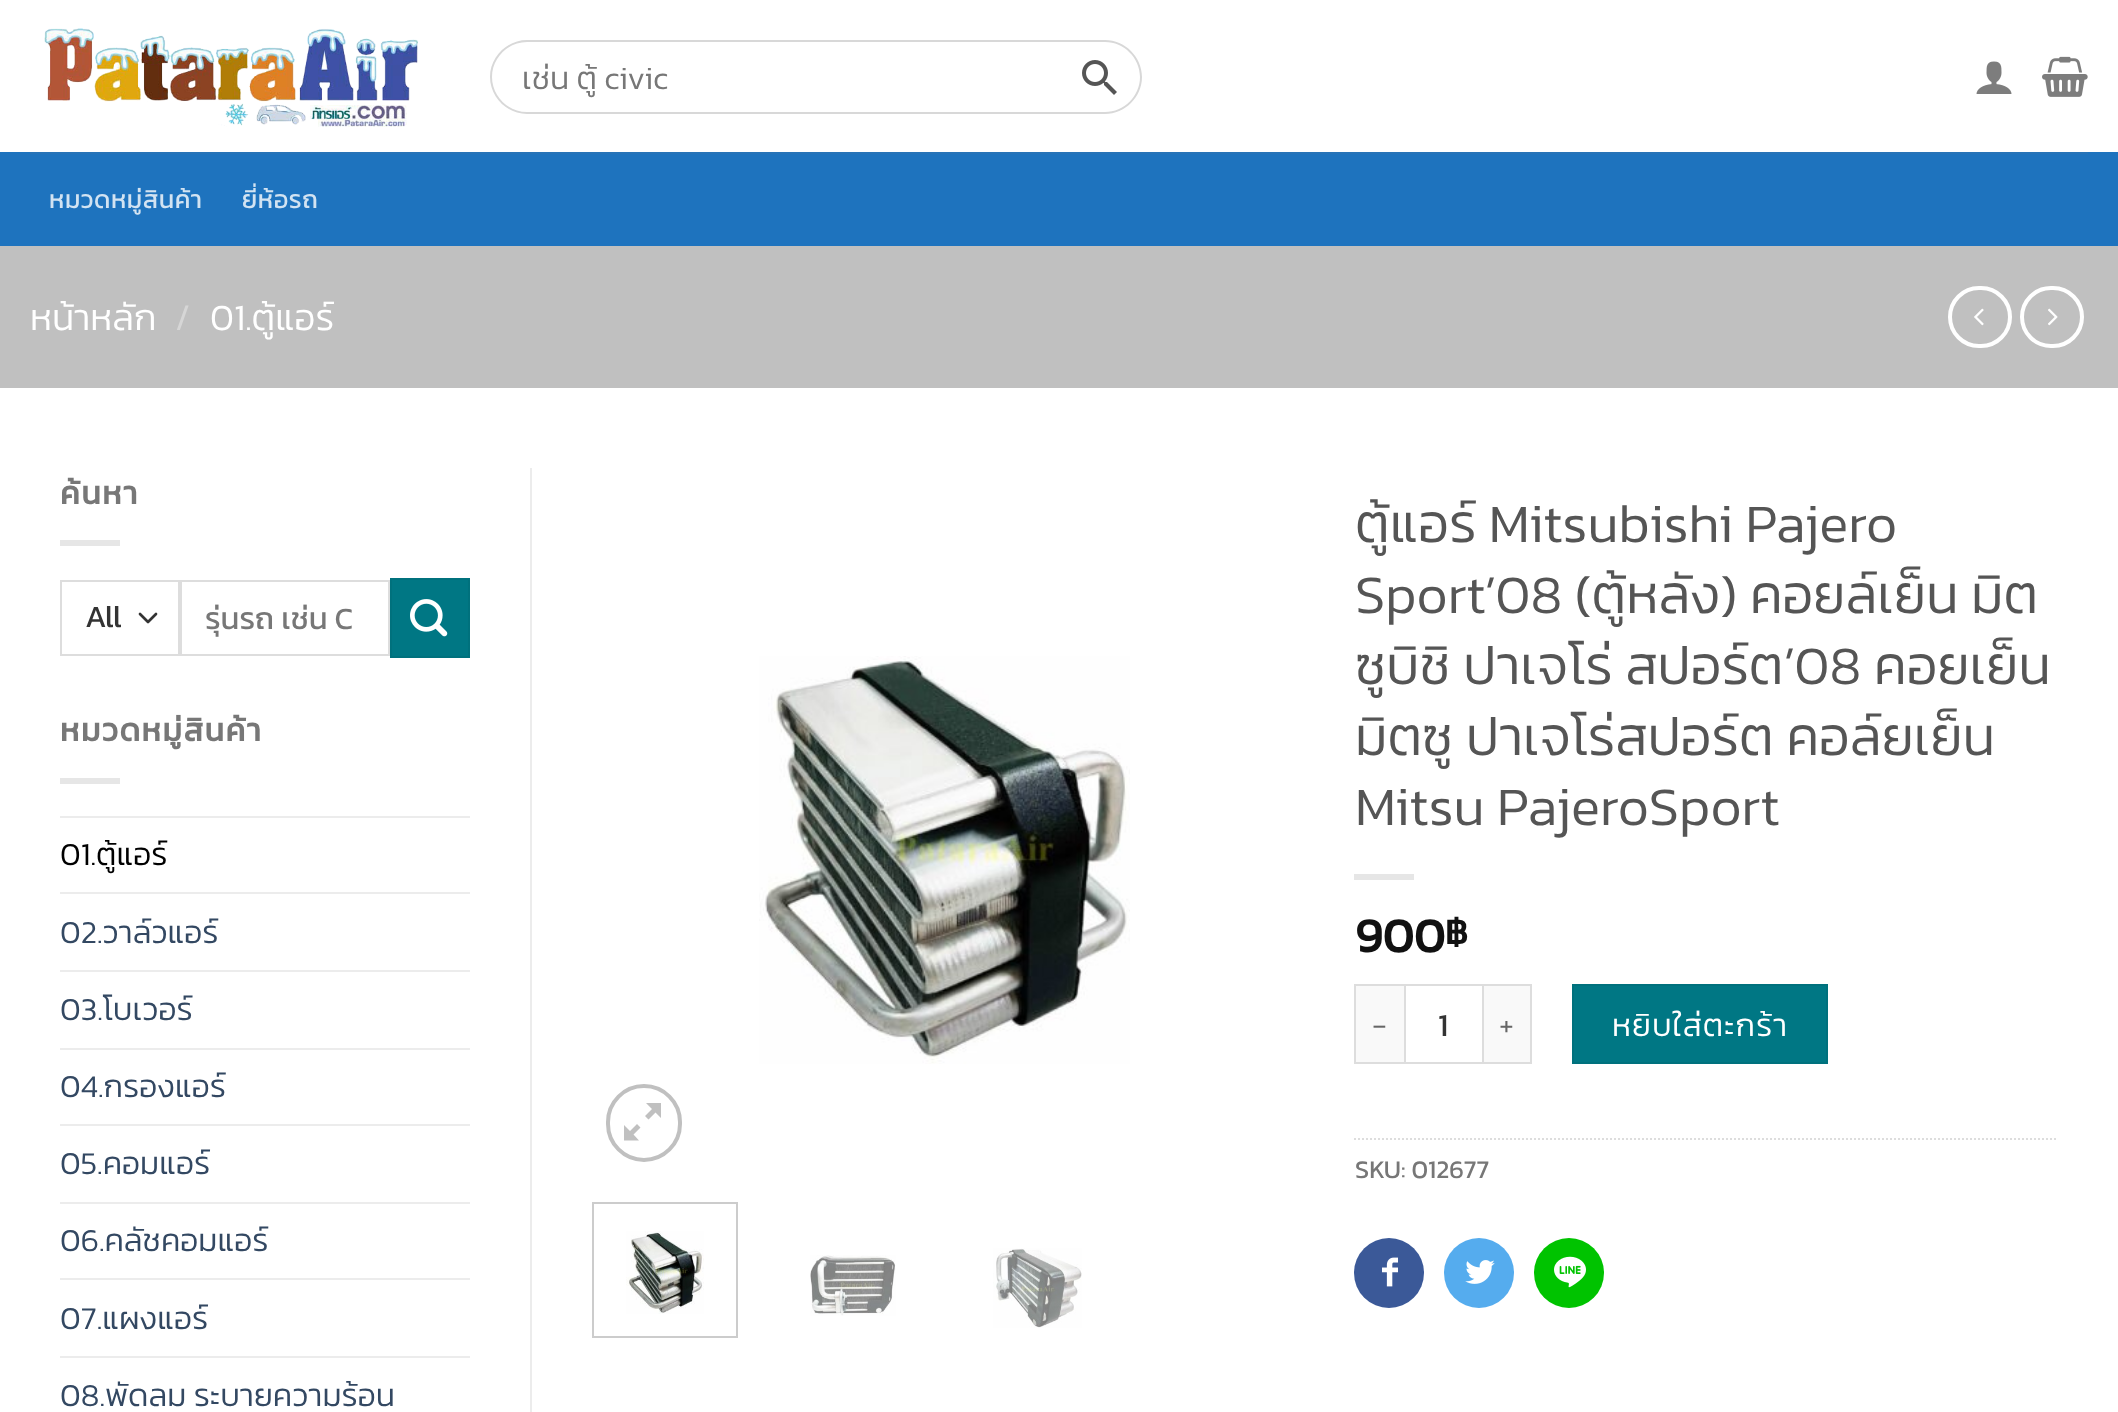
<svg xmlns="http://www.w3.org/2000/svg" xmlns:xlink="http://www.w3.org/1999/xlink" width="2118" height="1412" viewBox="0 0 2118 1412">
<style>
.cls-1{font:300 32px Kanit;fill:#777777}
.cls-2{font:25.5px Kanit;letter-spacing:0.5px;fill:#d2e3f2}
.cls-3{font:300 37px Kanit;fill:#ffffff}
.cls-4{font:300 37px Kanit;fill:#d6d6d6}
.cls-5{font:bold 32px Kanit;letter-spacing:1.6px;fill:#777777}
.cls-6{font:31px Kanit;fill:#333333}
.cls-7{font:31px Kanit;fill:#777777}
.cls-8{font:300 32px Kanit;fill:#000000}
.cls-9{font:300 32px Kanit;fill:#334862}
.cls-10{font:300 54.4px Kanit;fill:#555555}
.cls-11{font:bold 48px Kanit;fill:#111111}
.cls-12{font:bold 36px Kanit;fill:#111111}
.cls-13{font:300 31px Kanit;letter-spacing:1px;fill:#666666}
.cls-14{font:32px Kanit;fill:#333333}
.cls-15{font:300 32px Kanit;letter-spacing:1px;fill:#ffffff}
.cls-16{font:25.5px Kanit;fill:#777777}
</style>
<defs>
<clipPath id="clip1"><rect x="206" y="594" width="150" height="46"/></clipPath>
</defs>
<rect width="100%" height="100%" fill="#ffffff"/>
<image xlink:href="image0.png" x="44" y="28" width="374" height="99"/>
<path fill="#d8d8d8" fill-rule="evenodd" d="M1058 40H1105C1125 40 1142 57 1142 77C1142 97 1125 114 1105 114H1058ZM1058 42H1105C1124 42 1140 58 1140 77C1140 96 1124 112 1105 112H1058Z"/>
<path fill="#ffffff" d="M527 40H1060V114H527C506.5 114 490 97.5 490 77C490 56.5 506.5 40 527 40Z"/>
<path fill="#d8d8d8" fill-rule="evenodd" d="M527 40H1060V114H527C507 114 490 97 490 77C490 57 507 40 527 40ZM527 42H1060V112H527C508 112 492 96 492 77C492 58 508 42 527 42Z"/>
<image xlink:href="image1.png" x="1082" y="60" width="35" height="35"/>
<image xlink:href="image2.png" x="1976" y="61" width="36" height="33"/>
<image xlink:href="image3.png" x="2042" y="56" width="46" height="41"/>
<rect fill="#1e73be" x="0" y="152" width="2118" height="94"/>
<rect fill="#2773b7" x="30" y="152" width="2058" height="2"/>
<rect fill="#c0c0c0" x="0" y="246" width="2118" height="142"/>
<rect fill="none" stroke="#ffffff" stroke-width="4" x="1950" y="288" width="60" height="58" rx="29"/>
<image xlink:href="image4.png" x="1974" y="308" width="10" height="18"/>
<rect fill="none" stroke="#ffffff" stroke-width="4" x="2022" y="288" width="60" height="58" rx="29"/>
<image xlink:href="image5.png" x="2048" y="308" width="10" height="18"/>
<rect fill="#e6e6e6" x="60" y="540" width="60" height="6"/>
<path fill="none" stroke="#333333" stroke-width="2.7" stroke-linecap="round" stroke-linejoin="round" d="M140 614L148 622L156 614"/>
<rect fill="none" stroke="#dddddd" stroke-width="2" x="61" y="581" width="118" height="74"/>
<rect fill="none" stroke="#dddddd" stroke-width="2" x="181" y="581" width="208" height="74"/>
<rect fill="#007784" stroke="#00717d" stroke-width="2" x="391" y="579" width="78" height="78"/>
<image xlink:href="image6.png" x="410" y="599" width="38" height="38"/>
<rect fill="#e6e6e6" x="60" y="778" width="60" height="6"/>
<rect fill="#ececec" x="60" y="816" width="410" height="2"/>
<rect fill="#ececec" x="60" y="892" width="410" height="2"/>
<rect fill="#ececec" x="60" y="970" width="410" height="2"/>
<rect fill="#ececec" x="60" y="1048" width="410" height="2"/>
<rect fill="#ececec" x="60" y="1124" width="410" height="2"/>
<rect fill="#ececec" x="60" y="1202" width="410" height="2"/>
<rect fill="#ececec" x="60" y="1278" width="410" height="2"/>
<rect fill="#ececec" x="60" y="1356" width="410" height="2"/>
<rect fill="#ececec" x="530" y="468" width="2" height="944"/>
<image xlink:href="image7.png" x="759" y="656" width="371" height="408"/>
<rect fill="none" stroke="#c0c0c0" stroke-width="4" x="608" y="1086" width="72" height="74" rx="36"/>
<path fill="#c0c0c0" d="M661 1103V1118L655.5 1112.5L648.5 1119.5L645 1116L652 1109L646 1103ZM640.5 1127.5L633.5 1134.5L639 1140.5H624V1125L630 1131L637 1124Z"/>
<rect fill="none" stroke="#cccccc" stroke-width="2" x="593" y="1203" width="144" height="134"/>
<image xlink:href="image8.png" x="626" y="1231" width="78" height="83"/>
<image xlink:href="image9.png" x="810" y="1255" width="86" height="61"/>
<image xlink:href="image10.png" x="993" y="1248" width="89" height="80"/>
<rect fill="#e6e6e6" x="1354" y="874" width="60" height="6"/>
<rect fill="#f9f9f9" x="1356" y="986" width="48" height="76"/>
<rect fill="#dddddd" x="1354" y="984" width="50" height="2"/>
<rect fill="#dddddd" x="1354" y="1062" width="50" height="2"/>
<rect fill="#dddddd" x="1354" y="984" width="2" height="80"/>
<rect fill="none" stroke="#dddddd" stroke-width="2" x="1405" y="985" width="78" height="78"/>
<rect fill="#f9f9f9" x="1484" y="986" width="46" height="76"/>
<rect fill="#dddddd" x="1484" y="984" width="48" height="2"/>
<rect fill="#dddddd" x="1530" y="984" width="2" height="80"/>
<rect fill="#dddddd" x="1484" y="1062" width="48" height="2"/>
<rect fill="#007784" stroke="#00717d" stroke-width="2" x="1573" y="985" width="254" height="78"/>
<path fill="none" stroke="#dddddd" stroke-width="2" stroke-dasharray="2 2" d="M1354 1139H2058"/>
<circle fill="#3b5998" cx="1389" cy="1273" r="35"/>
<image xlink:href="image11.png" x="1382" y="1257" width="16" height="30"/>
<circle fill="#55acee" cx="1479" cy="1273" r="35"/>
<image xlink:href="image12.png" x="1465" y="1260" width="30" height="24"/>
<circle fill="#00c300" cx="1569" cy="1273" r="35"/>
<image xlink:href="image13.png" x="1554" y="1256" width="32" height="32"/>
<text class="cls-1" x="522" y="89">เช่น ตู้ civic</text>
<text class="cls-2" x="49" y="208">หมวดหมู่สินค้า</text>
<text class="cls-2" x="242" y="208">ยี่ห้อรถ</text>
<text class="cls-3" x="30" y="330">หน้าหลัก</text>
<text class="cls-4" x="175" y="330">/</text>
<text class="cls-3" x="210" y="330">01.ตู้แอร์</text>
<text class="cls-5" x="60" y="504">ค้นหา</text>
<text class="cls-6" x="85" y="627">All</text>
<g clip-path="url(#clip1)">
<text class="cls-7" x="205" y="629">รุ่นรถ เช่น C</text>
</g>
<text class="cls-5" x="60" y="741">หมวดหมู่สินค้า</text>
<text class="cls-8" x="60" y="865">01.ตู้แอร์</text>
<text class="cls-9" x="60" y="943">02.วาล์วแอร์</text>
<text class="cls-9" x="60" y="1020">03.โบเวอร์</text>
<text class="cls-9" x="60" y="1097">04.กรองแอร์</text>
<text class="cls-9" x="60" y="1174">05.คอมแอร์</text>
<text class="cls-9" x="60" y="1251">06.คลัชคอมแอร์</text>
<text class="cls-9" x="60" y="1329">07.แผงแอร์</text>
<text class="cls-9" x="60" y="1406">08.พัดลม ระบายความร้อน</text>
<text class="cls-10"><tspan x="1355" y="542">ตู้แอร์ Mitsubishi Pajero</tspan><tspan x="1355" y="613">Sport’08 (ตู้หลัง) คอยล์เย็น มิต</tspan><tspan x="1355" y="684">ซูบิชิ ปาเจโร่ สปอร์ต’08 คอยเย็น</tspan><tspan x="1355" y="755">มิตซู ปาเจโร่สปอร์ต คอล์ยเย็น</tspan><tspan x="1355" y="825">Mitsu PajeroSport</tspan></text>
<text class="cls-11" x="1355" y="952">900</text>
<text class="cls-12" x="1445" y="944">฿</text>
<text class="cls-13" x="1372" y="1035">-</text>
<text class="cls-14" x="1438" y="1036">1</text>
<text class="cls-13" x="1499" y="1035">+</text>
<text class="cls-15" x="1612" y="1036">หยิบใส่ตะกร้า</text>
<text class="cls-16" x="1355" y="1178">SKU: 012677</text>
</svg>
